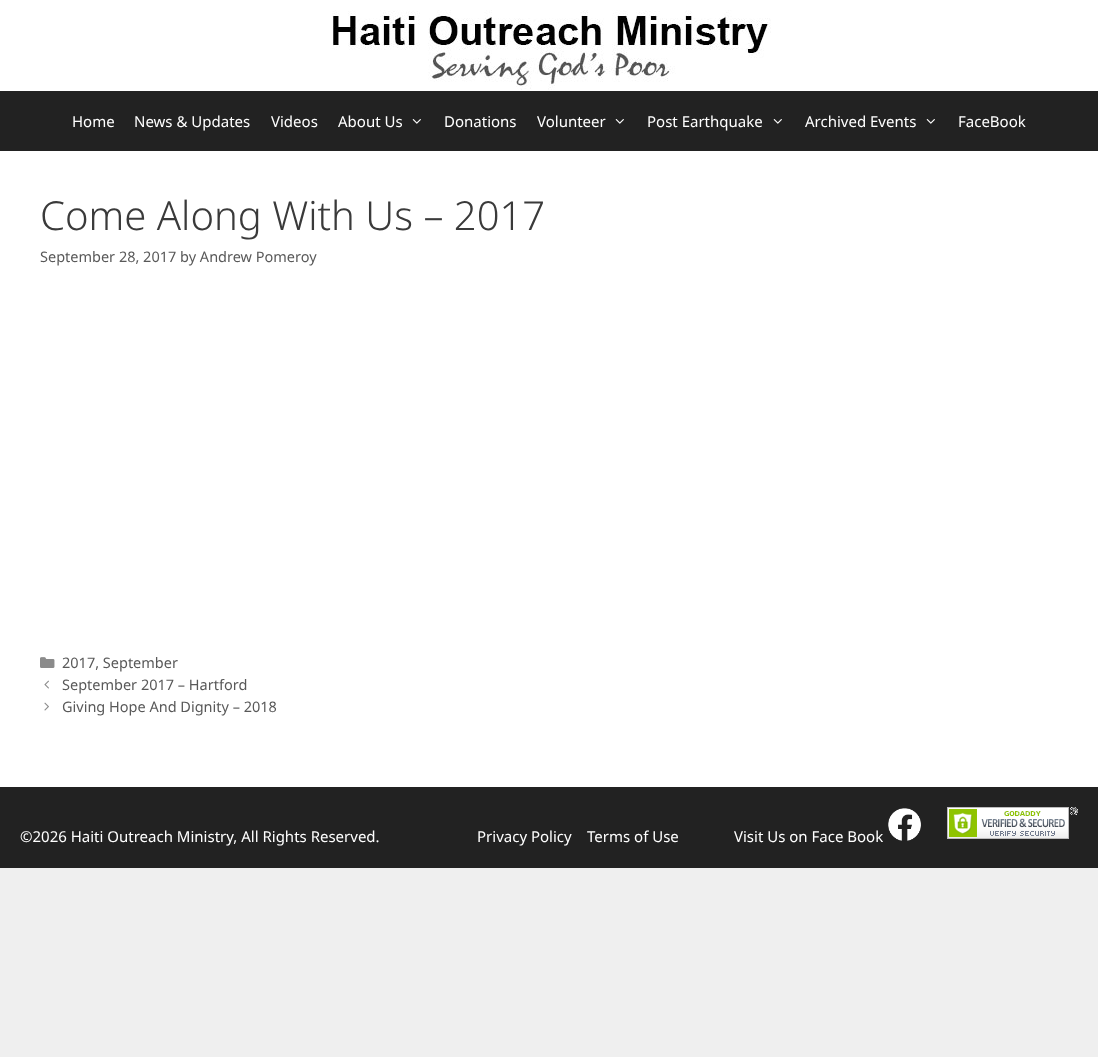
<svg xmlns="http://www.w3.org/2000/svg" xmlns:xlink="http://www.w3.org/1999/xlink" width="1098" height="1057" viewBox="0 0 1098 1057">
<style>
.cls-1{font:15px Noto Sans;fill:#ffffff}
.cls-2{font:300 40px Noto Sans;fill:#3a3a3a}
.cls-3{font:14.5px Noto Sans;fill:#595959}
</style>
<rect width="100%" height="100%" fill="#efefef"/>
<rect fill="#ffffff" x="0" y="0" width="1098" height="91"/>
<image xlink:href="image0.png" x="332" y="10" width="439" height="80"/>
<rect fill="#222222" x="0" y="91" width="1098" height="60"/>
<image xlink:href="image1.png" x="412" y="119" width="9" height="5"/>
<image xlink:href="image1.png" x="615" y="119" width="9" height="5"/>
<image xlink:href="image1.png" x="773" y="119" width="9" height="5"/>
<image xlink:href="image1.png" x="926" y="119" width="9" height="5"/>
<rect fill="#ffffff" x="0" y="151" width="1098" height="636"/>
<image xlink:href="image2.png" x="40" y="657" width="15" height="11"/>
<image xlink:href="image3.png" x="44" y="680" width="5" height="9"/>
<image xlink:href="image4.png" x="44" y="702" width="5" height="9"/>
<rect fill="#222222" x="0" y="787" width="1098" height="81"/>
<image xlink:href="image5.png" x="888" y="808" width="33" height="33"/>
<image xlink:href="image6.png" x="947" y="807" width="131" height="32"/>
<text class="cls-1" x="72" y="127">Home</text>
<text class="cls-1" x="134" y="127">News &amp; Updates</text>
<text class="cls-1" x="271" y="127">Videos</text>
<text class="cls-1" x="338" y="127">About Us</text>
<text class="cls-1" x="444" y="127">Donations</text>
<text class="cls-1" x="537" y="127">Volunteer</text>
<text class="cls-1" x="647" y="127">Post Earthquake</text>
<text class="cls-1" x="805" y="127">Archived Events</text>
<text class="cls-1" x="958" y="127">FaceBook</text>
<text class="cls-2" x="40" y="230">Come Along With Us – 2017</text>
<text class="cls-3" x="40" y="262">September 28, 2017 by Andrew Pomeroy</text>
<text class="cls-3"><tspan x="62" y="668">2017, September</tspan><tspan x="62" y="690">September 2017 – Hartford</tspan><tspan x="62" y="712">Giving Hope And Dignity – 2018</tspan></text>
<text class="cls-1" x="20" y="842">©2026 Haiti Outreach Ministry, All Rights Reserved.</text>
<text class="cls-1" x="477" y="842">Privacy Policy</text>
<text class="cls-1" x="587" y="842">Terms of Use</text>
<text class="cls-1" x="734" y="842">Visit Us on Face Book</text>
</svg>
